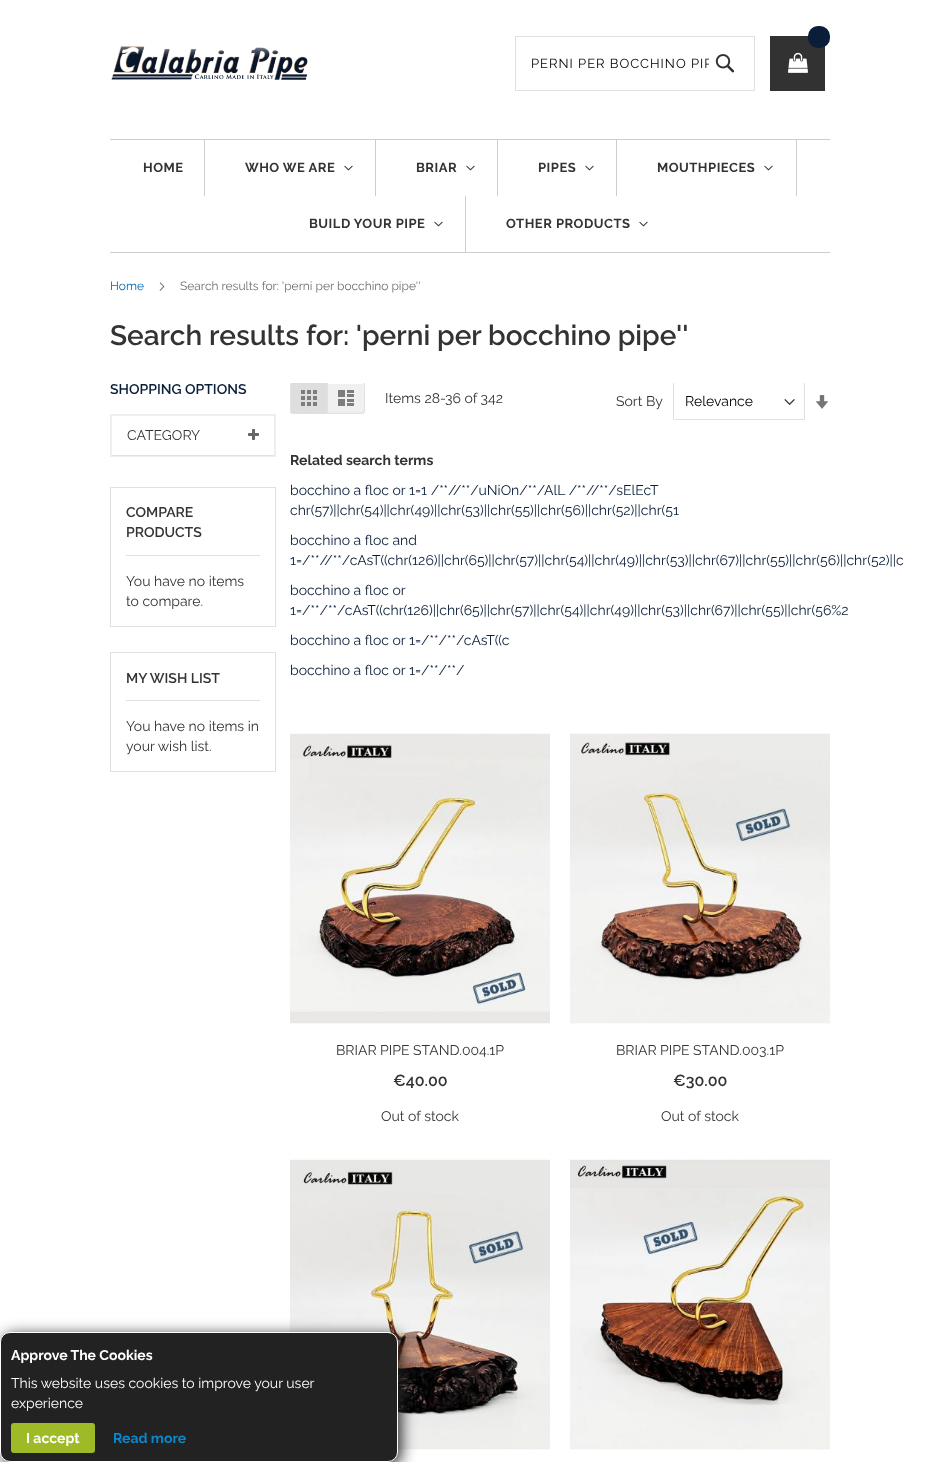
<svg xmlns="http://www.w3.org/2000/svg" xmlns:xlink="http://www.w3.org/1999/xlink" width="940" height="1462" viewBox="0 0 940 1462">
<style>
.cls-1{font:13px Raleway;letter-spacing:1px;fill:#000000}
.cls-2{font:bold 13px Raleway;letter-spacing:0.5px;fill:#333333}
.cls-3{font:12px Raleway;fill:#006bb4}
.cls-4{font:12px Raleway;fill:#707070}
.cls-5{font:600 28px Raleway;fill:#333333}
.cls-6{font:600 14px Raleway;fill:#0a1e39}
.cls-7{font:14px Raleway;fill:#333333}
.cls-8{font:14px Raleway;fill:#000000}
.cls-9{font:bold 14px Raleway;fill:#333333}
.cls-10{font:14px Raleway;fill:#0a1e39}
.cls-11{font:600 16px Raleway;fill:#333333}
.cls-12{font:600 14px Raleway;fill:#333333}
.cls-13{font:bold 14px Raleway;fill:#ffffff}
.cls-14{font:14px Raleway;fill:#ffffff}
.cls-15{font:bold 14px Raleway;fill:#0a88cc}
</style>
<defs>
<clipPath id="clip1"><rect x="531" y="56" width="178" height="15"/></clipPath>
</defs>
<rect width="100%" height="100%" fill="#ffffff"/>
<image xlink:href="image0.png" x="111" y="46" width="197" height="34"/>
<rect fill="none" stroke="#e1e1e1" x="515.5" y="36.5" width="239" height="54"/>
<image xlink:href="image1.png" x="715" y="54" width="20" height="19"/>
<rect fill="#323232" x="770" y="36" width="55" height="55"/>
<rect fill="#0a1e39" x="808" y="26" width="22" height="22" rx="10"/>
<image xlink:href="image2.png" x="788" y="52" width="20" height="21"/>
<rect fill="#cdcdcc" x="110" y="139" width="720" height="1"/>
<rect fill="#cdcdcc" x="110" y="252" width="720" height="1"/>
<rect fill="#cdcdcc" x="204" y="140" width="1" height="56"/>
<rect fill="#cdcdcc" x="375" y="140" width="1" height="56"/>
<image xlink:href="image3.png" x="344" y="165" width="9" height="6"/>
<rect fill="#cdcdcc" x="497" y="140" width="1" height="56"/>
<image xlink:href="image3.png" x="466" y="165" width="9" height="6"/>
<rect fill="#cdcdcc" x="616" y="140" width="1" height="56"/>
<image xlink:href="image3.png" x="585" y="165" width="9" height="6"/>
<rect fill="#cdcdcc" x="796" y="140" width="1" height="56"/>
<image xlink:href="image3.png" x="764" y="165" width="9" height="6"/>
<rect fill="#cdcdcc" x="465" y="196" width="1" height="56"/>
<image xlink:href="image3.png" x="434" y="221" width="9" height="6"/>
<image xlink:href="image3.png" x="639" y="221" width="9" height="6"/>
<image xlink:href="image4.png" x="159" y="282" width="6" height="9"/>
<rect fill="none" stroke="#eeeeee" stroke-width="2" x="111" y="415" width="164" height="41"/>
<rect fill="#e1e1e1" x="112" y="455" width="162" height="1"/>
<image xlink:href="image5.png" x="248" y="429" width="11" height="11"/>
<path fill="#dedede" d="M293 382H327V414H293C291.5 414 290 412.5 290 411V385C290 383.5 291.5 382 293 382Z"/>
<path fill="#e1e1e1" fill-rule="evenodd" d="M293 382H327V414H293C291.5 414 290 412.5 290 411V385C290 383.5 291.5 382 293 382ZM293 383H327V413C323 413 293 413.5 292 412.5L291 411.5V384.5L291.5 383.5Z"/>
<image xlink:href="image6.png" x="301" y="390" width="16" height="16"/>
<path fill="#f0f0f0" d="M327 382H362C363.5 382 365 383.5 365 385V411C365 412.5 363.5 414 362 414H327Z"/>
<path fill="#ececec" d="M328 412V413H362C363 413 364 412 364 411V410C364 411 363 412 362 412Z"/>
<path fill="#ffffff" d="M328 384H362C363 384 364 385 364 386V385C364 384 363 383 362 383H328Z"/>
<path fill="none" stroke="#e1e1e1" d="M327.5 382.5H362C363.5 382.5 364.5 383.5 364.5 385V411C364.5 412.5 363.5 413.5 362 413.5H327.5Z"/>
<image xlink:href="image7.png" x="338" y="390" width="16" height="16"/>
<image xlink:href="image8.png" x="784" y="399" width="11" height="6"/>
<rect fill="none" stroke="#e1e1e1" x="673.5" y="382.5" width="131" height="37" rx="0.5"/>
<image xlink:href="image9.png" x="815" y="395" width="14" height="14"/>
<image xlink:href="image10.png" x="290" y="733" width="260" height="291"/>
<rect fill="#ffffff" x="291" y="382" width="514" height="1"/>
<image xlink:href="image11.png" x="570" y="733" width="260" height="291"/>
<image xlink:href="image12.png" x="290" y="1158" width="260" height="292"/>
<image xlink:href="image13.png" x="570" y="1159" width="260" height="291"/>
<rect fill="none" stroke="#e1e1e1" x="110.5" y="487.5" width="165" height="139"/>
<rect fill="#e1e1e1" x="126" y="555" width="134" height="1"/>
<rect fill="none" stroke="#e1e1e1" x="110.5" y="652.5" width="165" height="119"/>
<rect fill="#e1e1e1" x="126" y="700" width="134" height="1"/>
<rect fill="#222222" filter="blur(7.5px)" x="3" y="1335" width="398" height="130" rx="10"/>
<rect fill="#222222" stroke="#ffffff" x="0.5" y="1332.5" width="397" height="129" rx="9.5"/>
<rect fill="#9fba27" x="11" y="1423" width="84" height="30" rx="3"/>
<g clip-path="url(#clip1)">
<text class="cls-1" x="531" y="68">PERNI PER BOCCHINO PIP</text>
</g>
<text class="cls-2" x="143" y="172">HOME</text>
<text class="cls-2" x="245" y="172">WHO WE ARE</text>
<text class="cls-2" x="416" y="172">BRIAR</text>
<text class="cls-2" x="538" y="172">PIPES</text>
<text class="cls-2" x="657" y="172">MOUTHPIECES</text>
<text class="cls-2" x="309" y="228">BUILD YOUR PIPE</text>
<text class="cls-2" x="506" y="228">OTHER PRODUCTS</text>
<text class="cls-3" x="110" y="290">Home</text>
<text class="cls-4" x="180" y="290">Search results for: 'perni per bocchino pipe''</text>
<text class="cls-5" x="110" y="345">Search results for: 'perni per bocchino pipe''</text>
<text class="cls-6" x="110" y="394">SHOPPING OPTIONS</text>
<text class="cls-7" x="127" y="440">CATEGORY</text>
<text class="cls-7" x="385" y="403">Items 28-</text>
<text class="cls-7" x="445" y="403">36 of 342</text>
<text class="cls-7" x="616" y="406">Sort By</text>
<text class="cls-8" x="685" y="406">Relevance</text>
<text class="cls-9" x="290" y="465">Related search terms</text>
<text class="cls-10"><tspan x="290" y="495">bocchino a floc or 1=1 /**//**/uNiOn/**/AlL /**//**/sElEcT</tspan><tspan x="290" y="515">chr(57)||chr(54)||chr(49)||chr(53)||chr(55)||chr(56)||chr(52)||chr(51</tspan></text>
<text class="cls-10"><tspan x="290" y="545">bocchino a floc and</tspan><tspan x="290" y="565">1=/**//**/cAsT((chr(126)||chr(65)||chr(57)||chr(54)||chr(49)||chr(53)||chr(67)||chr(55)||chr(56)||chr(52)||c</tspan></text>
<text class="cls-10"><tspan x="290" y="595">bocchino a floc or</tspan><tspan x="290" y="615">1=/**/**/cAsT((chr(126)||chr(65)||chr(57)||chr(54)||chr(49)||chr(53)||chr(67)||chr(55)||chr(56%2</tspan></text>
<text class="cls-10" x="290" y="645">bocchino a floc or 1=/**/**/cAsT((c</text>
<text class="cls-10" x="290" y="675">bocchino a floc or 1=/**/**/</text>
<text class="cls-7" x="336" y="1055">BRIAR PIPE STAND.004.1P</text>
<text class="cls-11" x="393" y="1086">€40.00</text>
<text class="cls-7" x="381" y="1121">Out of stock</text>
<text class="cls-7" x="616" y="1055">BRIAR PIPE STAND.003.1P</text>
<text class="cls-11" x="673" y="1086">€30.00</text>
<text class="cls-7" x="661" y="1121">Out of stock</text>
<text class="cls-12"><tspan x="126" y="517">COMPARE</tspan><tspan x="126" y="537">PRODUCTS</tspan></text>
<text class="cls-7"><tspan x="126" y="586">You have no items</tspan><tspan x="126" y="606">to compare.</tspan></text>
<text class="cls-12" x="126" y="683">MY WISH LIST</text>
<text class="cls-7"><tspan x="126" y="731">You have no items in</tspan><tspan x="126" y="751">your wish list.</tspan></text>
<text class="cls-13" x="11" y="1360">Approve The Cookies</text>
<text class="cls-14"><tspan x="11" y="1388">This website uses cookies to improve your user</tspan><tspan x="11" y="1408">experience</tspan></text>
<text class="cls-13" x="26" y="1443">I accept</text>
<text class="cls-15" x="113" y="1443">Read more</text>
</svg>
